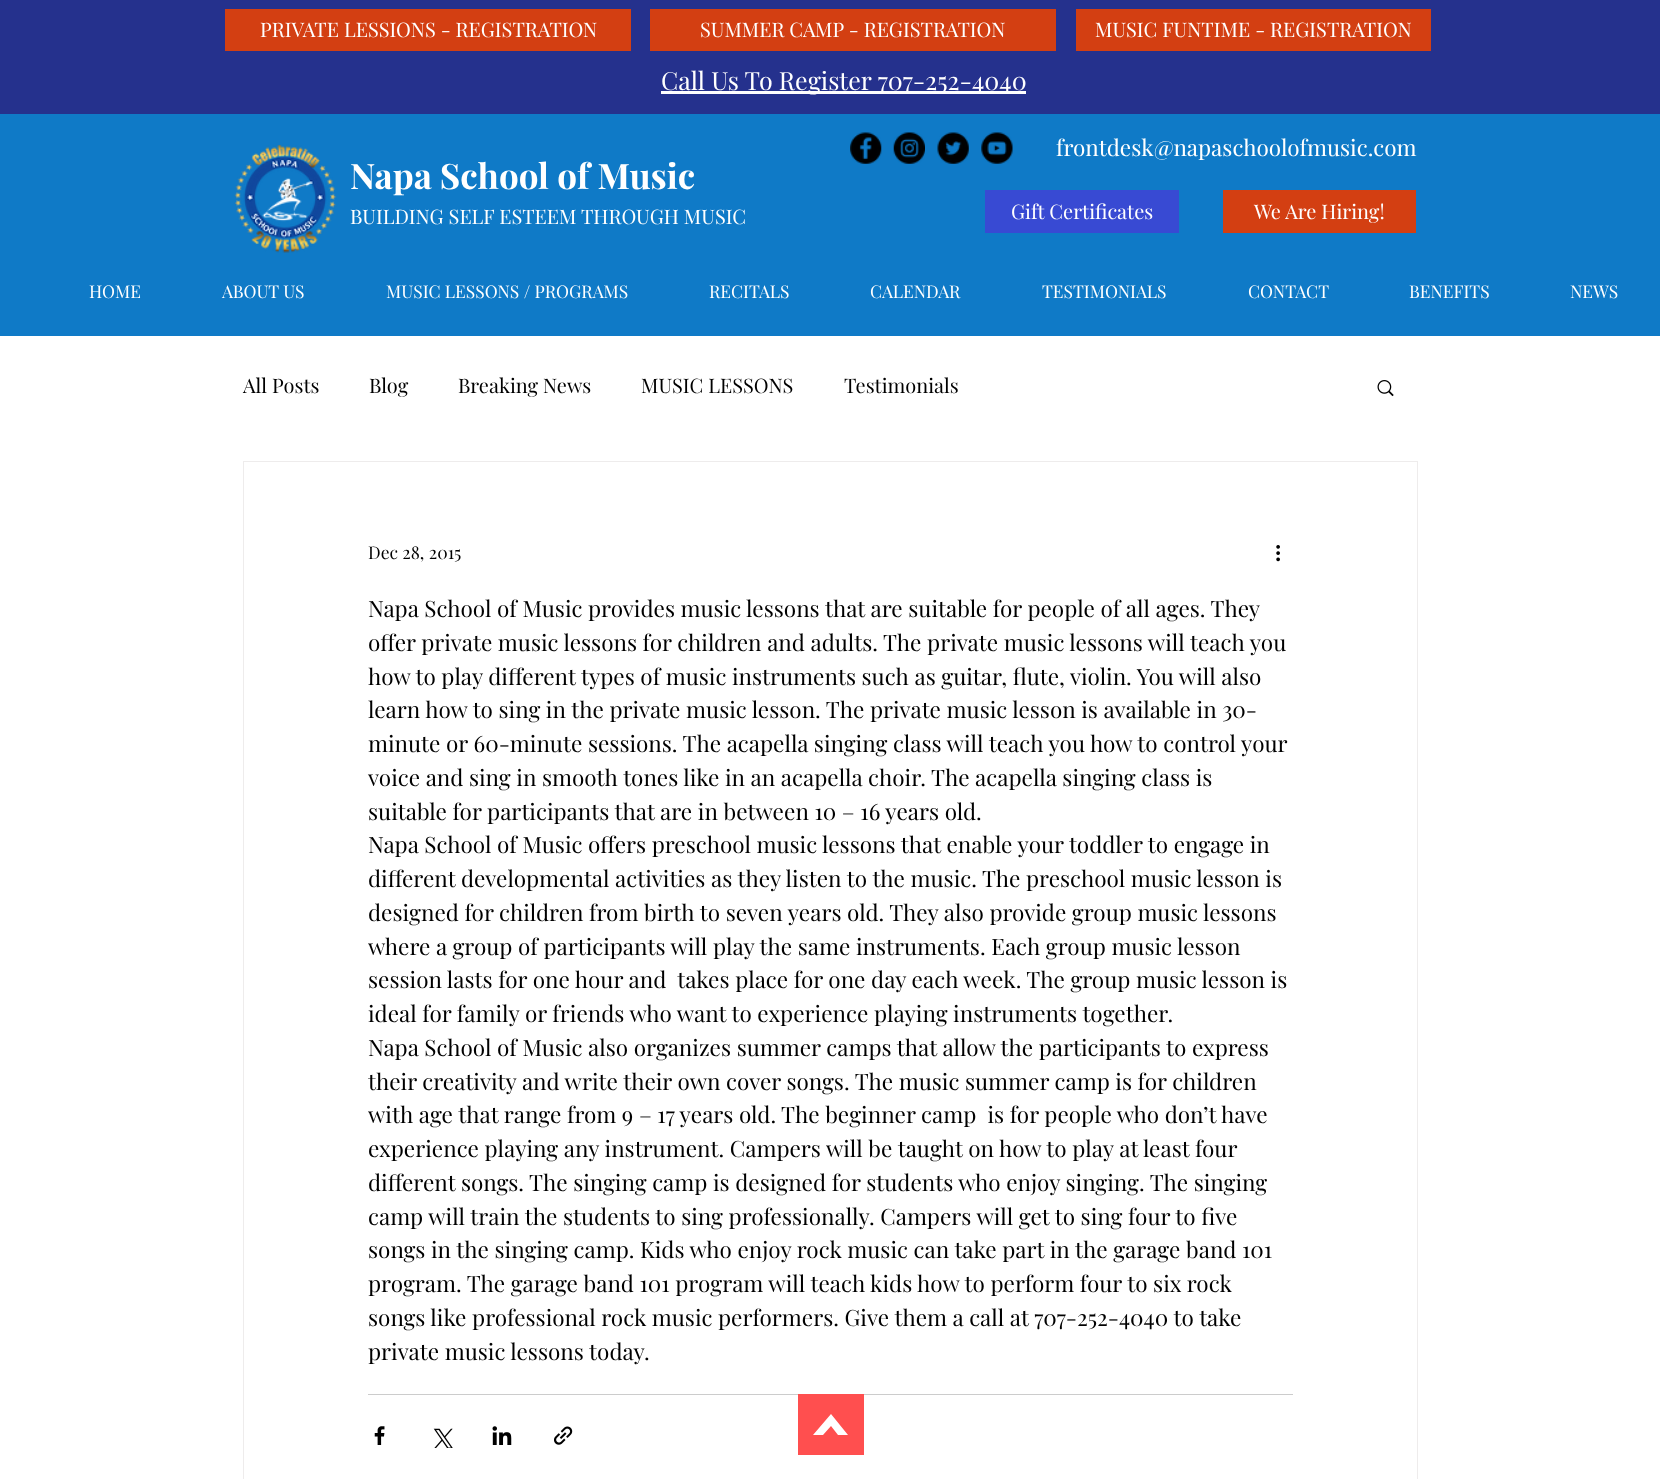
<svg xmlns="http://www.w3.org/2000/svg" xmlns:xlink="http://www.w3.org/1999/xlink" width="1660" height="1479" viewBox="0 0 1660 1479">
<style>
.cls-1{font:20px Playfair Display;fill:#ffffff}
.cls-2{font:25px Playfair Display;fill:#ffffff}
.cls-3{font:bold 35px Playfair Display;fill:#ffffff}
.cls-4{font:22.5px Playfair Display;fill:#ffffff}
.cls-5{font:20px 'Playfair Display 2';fill:#ffffff}
.cls-6{font:17.5px Playfair Display;fill:#ffffff}
.cls-7{font:20px Playfair Display;fill:#000000}
.cls-8{font:17.5px Playfair Display;fill:#000000}
.cls-9{font:22.5px Playfair Display;fill:#000000}
</style>
<rect width="100%" height="100%" fill="#ffffff"/>
<rect fill="#25318d" x="0" y="0" width="1660" height="114"/>
<rect fill="#d33f12" x="225" y="9" width="406" height="42"/>
<rect fill="#d33f12" x="650" y="9" width="406" height="42"/>
<rect fill="#d33f12" x="1076" y="9" width="355" height="42"/>
<rect fill="#ffffff" x="661" y="91" width="365" height="3"/>
<rect fill="#0f7ac7" x="0" y="114" width="1660" height="222"/>
<image xlink:href="image0.png" x="234" y="144" width="103" height="109"/>
<image xlink:href="image1.png" x="850" y="132" width="32" height="32"/>
<image xlink:href="image2.png" x="893" y="132" width="32" height="32"/>
<image xlink:href="image3.png" x="937" y="132" width="32" height="32"/>
<image xlink:href="image4.png" x="981" y="132" width="32" height="32"/>
<rect fill="#384ad3" x="985" y="190" width="194" height="43"/>
<rect fill="#d33f12" x="1223" y="190" width="193" height="43"/>
<image xlink:href="image5.png" x="1377" y="380" width="17" height="17"/>
<rect fill="none" stroke="#eeecec" x="243.5" y="461.5" width="1174" height="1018"/>
<image xlink:href="image6.png" x="1276" y="545" width="4" height="17"/>
<rect fill="#cccccc" x="368" y="1394" width="925" height="1"/>
<image xlink:href="image7.png" x="374" y="1426" width="11" height="19"/>
<image xlink:href="image8.png" x="433" y="1428" width="20" height="20"/>
<image xlink:href="image9.png" x="492" y="1426" width="20" height="19"/>
<image xlink:href="image10.png" x="554" y="1426" width="19" height="19"/>
<path fill="#ff4f4f" d="M798 1394V1455H864V1394ZM838 1435L831 1426L823 1435H813L831 1414L848 1435Z"/>
<text class="cls-1" x="260" y="37">PRIVATE LESSIONS - REGISTRATION</text>
<text class="cls-1" x="700" y="37">SUMMER CAMP - REGISTRATION</text>
<text class="cls-1" x="1095" y="37">MUSIC FUNTIME - REGISTRATION</text>
<text class="cls-2" x="661" y="90">Call Us To Register 707-252-4040</text>
<text class="cls-3" x="350" y="189">Napa School of Music</text>
<text class="cls-4" x="1056" y="156">frontdesk@napaschoolofmusic.com</text>
<text class="cls-5" x="350" y="224">BUILDING SELF ESTEEM THROUGH MUSIC</text>
<text class="cls-1" x="1011" y="219">Gift Certificates</text>
<text class="cls-1" x="1254" y="219">We Are Hiring!</text>
<text class="cls-6" x="89" y="298">HOME</text>
<text class="cls-6" x="222" y="298">ABOUT US</text>
<text class="cls-6" x="386" y="298">MUSIC LESSONS / PROGRAMS</text>
<text class="cls-6" x="709" y="298">RECITALS</text>
<text class="cls-6" x="870" y="298">CALENDAR</text>
<text class="cls-6" x="1042" y="298">TESTIMONIALS</text>
<text class="cls-6" x="1248" y="298">CONTACT</text>
<text class="cls-6" x="1409" y="298">BENEFITS</text>
<text class="cls-6" x="1570" y="298">NEWS</text>
<text class="cls-7" x="243" y="393">All Posts</text>
<text class="cls-7" x="369" y="393">Blog</text>
<text class="cls-7" x="458" y="393">Breaking News</text>
<text class="cls-7" x="641" y="393">MUSIC LESSONS</text>
<text class="cls-7" x="844" y="393">Testimonials</text>
<text class="cls-8" x="368" y="559">Dec 28, 2015</text>
<text class="cls-9" xml:space="preserve"><tspan x="368" y="617">Napa School of Music provides music lessons that are suitable for people of all ages. They</tspan><tspan x="368" y="651">offer private music lessons for children and adults. The private music lessons will teach you</tspan><tspan x="368" y="685">how to play different types of music instruments such as guitar, flute, violin. You will also</tspan><tspan x="368" y="718">learn how to sing in the private music lesson. The private music lesson is available in 30-</tspan><tspan x="368" y="752">minute or 60-minute sessions. The acapella singing class will teach you how to control your</tspan><tspan x="368" y="786">voice and sing in smooth tones like in an acapella choir. The acapella singing class is</tspan><tspan x="368" y="820">suitable for participants that are in between 10 – 16 years old.</tspan><tspan x="368" y="853">Napa School of Music offers preschool music lessons that enable your toddler to engage in</tspan><tspan x="368" y="887">different developmental activities as they listen to the music. The preschool music lesson is</tspan><tspan x="368" y="921">designed for children from birth to seven years old. They also provide group music lessons</tspan><tspan x="368" y="955">where a group of participants will play the same instruments. Each group music lesson</tspan><tspan x="368" y="988">session lasts for one hour and  takes place for one day each week. The group music lesson is</tspan><tspan x="368" y="1022">ideal for family or friends who want to experience playing instruments together.</tspan><tspan x="368" y="1056">Napa School of Music also organizes summer camps that allow the participants to express</tspan><tspan x="368" y="1090">their creativity and write their own cover songs. The music summer camp is for children</tspan><tspan x="368" y="1123">with age that range from 9 – 17 years old. The beginner camp  is for people who don’t have</tspan><tspan x="368" y="1157">experience playing any instrument. Campers will be taught on how to play at least four</tspan><tspan x="368" y="1191">different songs. The singing camp is designed for students who enjoy singing. The singing</tspan><tspan x="368" y="1225">camp will train the students to sing professionally. Campers will get to sing four to five</tspan><tspan x="368" y="1258">songs in the singing camp. Kids who enjoy rock music can take part in the garage band 101</tspan><tspan x="368" y="1292">program. The garage band 101 program will teach kids how to perform four to six rock</tspan><tspan x="368" y="1326">songs like professional rock music performers. Give them a call at 707-252-4040 to take</tspan><tspan x="368" y="1360">private music lessons today.</tspan></text>
</svg>
